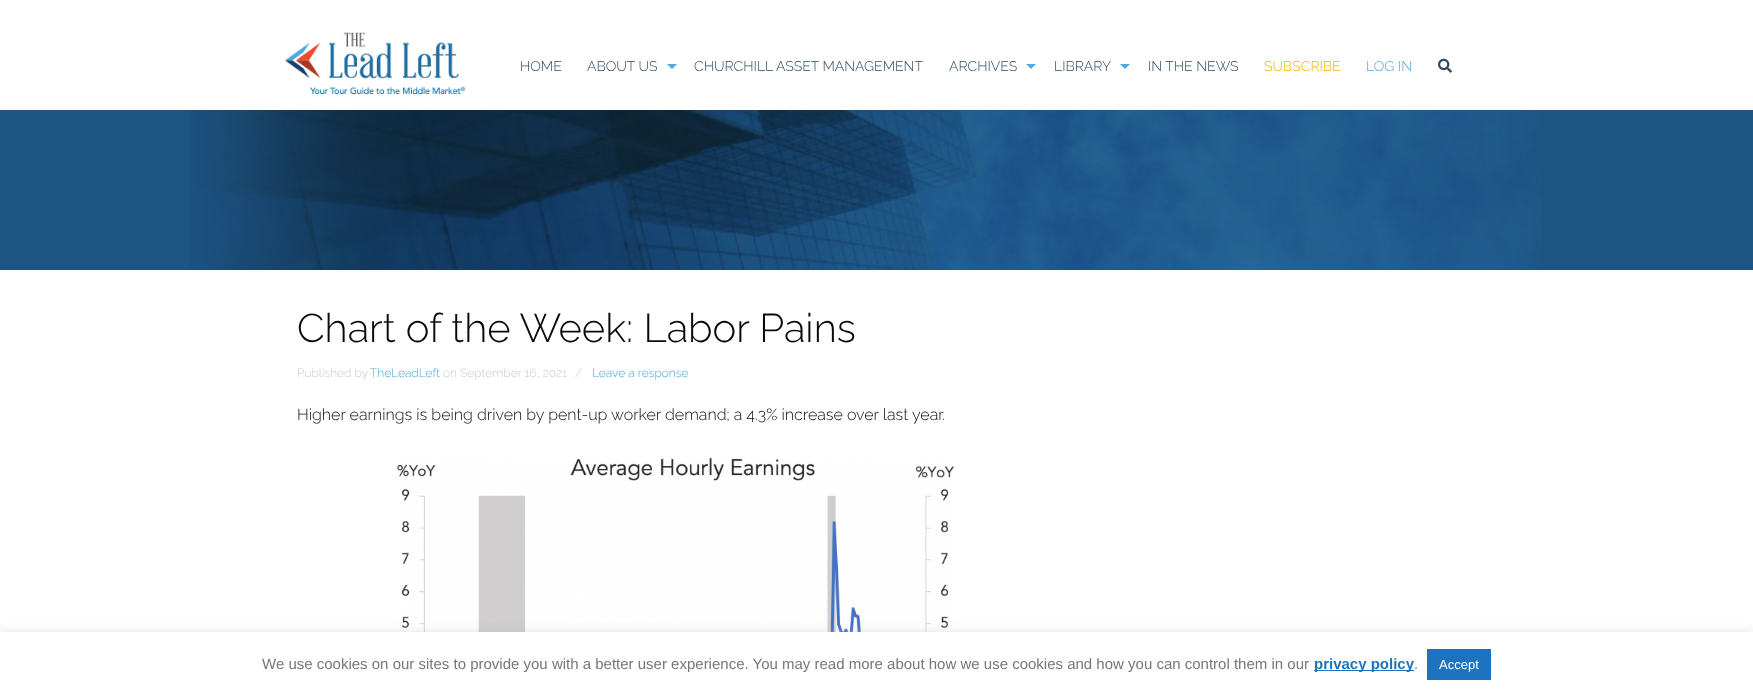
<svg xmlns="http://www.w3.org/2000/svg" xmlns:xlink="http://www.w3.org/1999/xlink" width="1753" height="692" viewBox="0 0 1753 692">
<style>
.cls-1{font:300 14px Raleway;fill:#2e4c61}
.cls-2{font:300 14px Raleway;fill:#ffae00}
.cls-3{font:300 14px Raleway;fill:#4fa9de}
.cls-4{font:300 40px Raleway;fill:#0a0a0a}
.cls-5{font:300 12px Raleway;fill:#cccccc}
.cls-6{font:300 12px Raleway;fill:#4fa9de}
.cls-7{font:300 16px Raleway;fill:#0a0a0a}
.cls-8{font:15px Liberation Sans;fill:#777777}
.cls-9{font:bold 15px Liberation Sans;fill:#1e73be}
.cls-10{font:13px Liberation Sans;fill:#ffffff}
</style>
<rect width="100%" height="100%" fill="#ffffff"/>
<image xlink:href="image0.png" x="285" y="32" width="180" height="63"/>
<path fill="#4fa9de" d="M667 64H677L672 69Z"/>
<path fill="#4fa9de" d="M1026 64H1036L1031 69Z"/>
<path fill="#4fa9de" d="M1120 64H1130L1125 69Z"/>
<image xlink:href="image1.png" x="1438" y="58" width="14" height="15"/>
<rect fill="#1e5482" x="0" y="110" width="1753" height="160"/>
<image xlink:href="image2.png" x="189" y="110" width="1352" height="160"/>
<image xlink:href="image3.png" x="397" y="457" width="557" height="175"/>
<rect fill="#acabab" fill-opacity="0.3" filter="blur(5px)" x="0" y="631" width="1753" height="60"/>
<rect fill="#ffffff" x="0" y="632" width="1753" height="60"/>
<rect fill="#1e73be" x="1314" y="670" width="100" height="1"/>
<rect fill="#1e73be" x="1427" y="649" width="64" height="31"/>
<text class="cls-1" x="520" y="71">HOME</text>
<text class="cls-1" x="587" y="71">ABOUT US</text>
<text class="cls-1" x="694" y="71">CHURCHILL ASSET MANAGEMENT</text>
<text class="cls-1" x="949" y="71">ARCHIVES</text>
<text class="cls-1" x="1054" y="71">LIBRARY</text>
<text class="cls-1" x="1148" y="71">IN THE NEWS</text>
<text class="cls-2" x="1264" y="71">SUBSCRIBE</text>
<text class="cls-3" x="1366" y="71">LOG IN</text>
<text class="cls-4" x="297" y="342">Chart of the Week: Labor Pains</text>
<text class="cls-5" x="297" y="377">Published by</text>
<text class="cls-6" x="370" y="377">TheLeadLeft</text>
<text class="cls-5" x="443" y="377">on September 16, 2021</text>
<text class="cls-5" x="575" y="377">/</text>
<text class="cls-6" x="592" y="377">Leave a response</text>
<text class="cls-7" x="297" y="420">Higher earnings is being driven by pent-up worker demand; a 4.3% increase over last year.</text>
<text class="cls-8" x="262" y="669">We use cookies on our sites to provide you with a better user experience. You may read more about how we use cookies and how you can control them in our</text>
<text class="cls-9" x="1314" y="669">privacy policy</text>
<text class="cls-8" x="1414" y="669">.</text>
<text class="cls-10" x="1439" y="669">Accept</text>
</svg>
